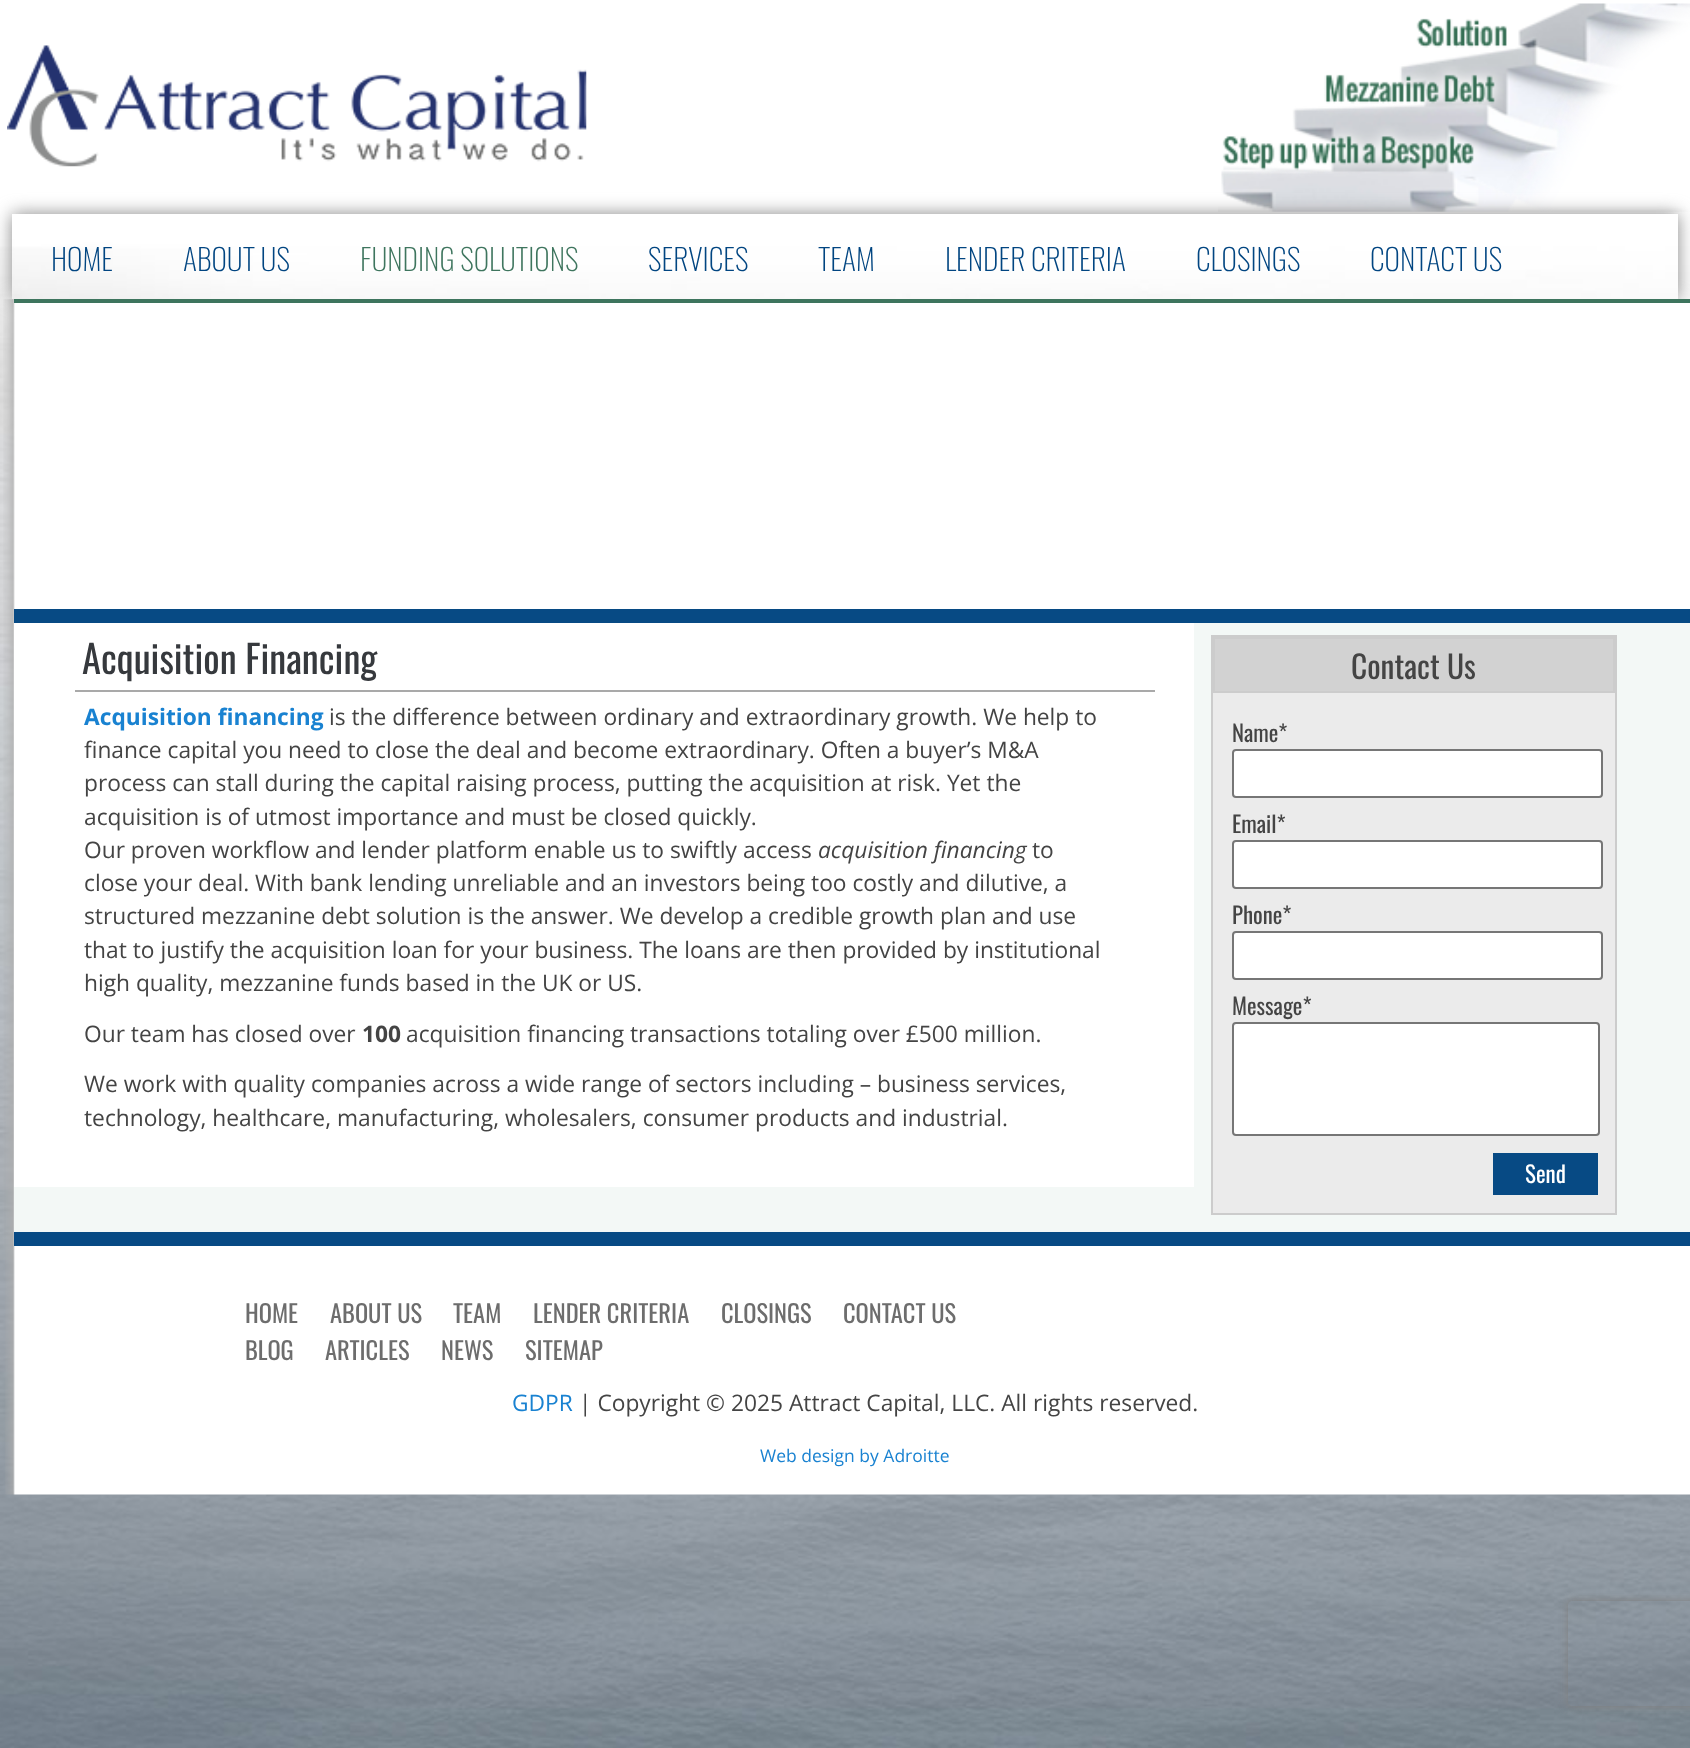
<svg xmlns="http://www.w3.org/2000/svg" xmlns:xlink="http://www.w3.org/1999/xlink" width="1690" height="1748" viewBox="0 0 1690 1748">
<style>
.cls-1{font:200 29.75px Oswald;fill:#014581}
.cls-2{font:200 29.75px Oswald;fill:#3e755e}
.cls-3{font:38.5px Oswald;fill:#36393d}
.cls-4{font:bold 22.75px Open Sans;fill:#1982d1}
.cls-5{font:22.75px Open Sans;fill:#444444}
.cls-6{font:italic 22.75px Open Sans;fill:#444444}
.cls-7{font:bold 22.75px Open Sans;fill:#444444}
.cls-8{font:31.5px Oswald;fill:#444444}
.cls-9{font:22.75px Oswald;fill:#444444}
.cls-10{font:23px Oswald;fill:#ffffff}
.cls-11{font:24.5px Oswald;fill:#6d6d6d}
.cls-12{font:22.75px Open Sans;fill:#1982d1}
.cls-13{font:17.5px Open Sans;fill:#1982d1}
</style>
<defs>
<clipPath id="clip1"><path d="M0 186H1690V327H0ZM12 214H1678V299H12Z" clip-rule="evenodd"/></clipPath>
<clipPath id="clip2"><path d="M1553 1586H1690V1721H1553ZM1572 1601H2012C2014 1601 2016 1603 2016 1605V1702C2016 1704 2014 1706 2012 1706H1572C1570 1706 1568 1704 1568 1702V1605C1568 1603 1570 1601 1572 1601Z" clip-rule="evenodd"/></clipPath>
</defs>
<rect width="100%" height="100%" fill="#ffffff"/>
<image xlink:href="image0.png" x="0" y="0" width="1690" height="1748"/>
<image xlink:href="image1.png" x="7" y="45" width="580" height="122"/>
<image xlink:href="image2.png" x="1218" y="3" width="472" height="209"/>
<g clip-path="url(#clip1)">
<rect fill="#888888" filter="blur(9px)" x="12" y="214" width="1666" height="85"/>
</g>
<image xlink:href="image3.png" x="3" y="299" width="1687" height="947"/>
<rect fill="#3e755e" x="14" y="299" width="1676" height="4"/>
<rect fill="#074a84" x="14" y="609" width="1676" height="14"/>
<rect fill="#f3f8f6" x="14" y="623" width="1676" height="609"/>
<rect fill="#074a84" x="14" y="1232" width="1676" height="14"/>
<rect fill="#ffffff" x="14" y="623" width="1180" height="564"/>
<rect fill="#a9a9a9" x="75" y="690" width="1080" height="2"/>
<rect fill="#ebebeb" x="1213" y="693" width="402" height="520"/>
<rect fill="none" stroke="#cccccc" stroke-width="2" x="1212" y="636" width="404" height="578"/>
<rect fill="#d2d2d2" stroke="#cccccc" stroke-width="2" x="1214" y="638" width="400" height="54"/>
<rect fill="#ffffff" stroke="#767676" stroke-width="2" x="1233" y="750" width="369" height="47" rx="3"/>
<rect fill="#ffffff" stroke="#767676" stroke-width="2" x="1233" y="841" width="369" height="47" rx="3"/>
<rect fill="#ffffff" stroke="#767676" stroke-width="2" x="1233" y="932" width="369" height="47" rx="3"/>
<rect fill="#ffffff" stroke="#767676" stroke-width="2" x="1233" y="1023" width="366" height="112" rx="3"/>
<rect fill="#074a84" x="1493" y="1153" width="105" height="42"/>
<g clip-path="url(#clip2)">
<rect fill="#808080" filter="blur(4.5px)" x="1568" y="1601" width="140" height="105" rx="4"/>
</g>
<image xlink:href="image4.png" x="5" y="1246" width="1685" height="249"/>
<text class="cls-1" x="51" y="271">HOME</text>
<text class="cls-1" x="183" y="271">ABOUT US</text>
<text class="cls-2" x="360" y="271">FUNDING SOLUTIONS</text>
<text class="cls-1" x="648" y="271">SERVICES</text>
<text class="cls-1" x="818" y="271">TEAM</text>
<text class="cls-1" x="945" y="271">LENDER CRITERIA</text>
<text class="cls-1" x="1196" y="271">CLOSINGS</text>
<text class="cls-1" x="1370" y="271">CONTACT US</text>
<text class="cls-3" x="82" y="674">Acquisition Financing</text>
<text class="cls-4" x="84" y="725">Acquisition financing</text>
<text class="cls-5" x="329" y="725">is the difference between ordinary and extraordinary growth. We help to</text>
<text class="cls-5"><tspan x="84" y="758">finance capital you need to close the deal and become extraordinary. Often a buyer’s M&amp;A</tspan><tspan x="84" y="791">process can stall during the capital raising process, putting the acquisition at risk. Yet the</tspan><tspan x="84" y="825">acquisition is of utmost importance and must be closed quickly.</tspan><tspan x="84" y="858">Our proven workflow and lender platform enable us to swiftly access</tspan></text>
<text class="cls-6" x="818" y="858">acquisition financing</text>
<text class="cls-5" x="1032" y="858">to</text>
<text class="cls-5"><tspan x="84" y="891">close your deal. With bank lending unreliable and an investors being too costly and dilutive, a</tspan><tspan x="84" y="924">structured mezzanine debt solution is the answer. We develop a credible growth plan and use</tspan><tspan x="84" y="958">that to justify the acquisition loan for your business. The loans are then provided by institutional</tspan><tspan x="84" y="991">high quality, mezzanine funds based in the UK or US.</tspan></text>
<text class="cls-5" x="84" y="1042">Our team has closed over</text>
<text class="cls-7" x="362" y="1042">100</text>
<text class="cls-5" x="406" y="1042">acquisition financing transactions totaling over £500 million.</text>
<text class="cls-5"><tspan x="84" y="1092">We work with quality companies across a wide range of sectors including – business services,</tspan><tspan x="84" y="1126">technology, healthcare, manufacturing, wholesalers, consumer products and industrial.</tspan></text>
<text class="cls-8" x="1351" y="679">Contact Us</text>
<text class="cls-9" x="1232" y="742">Name*</text>
<text class="cls-9" x="1232" y="833">Email*</text>
<text class="cls-9" x="1232" y="924">Phone*</text>
<text class="cls-9" x="1232" y="1015">Message*</text>
<text class="cls-10" x="1525" y="1183">Send</text>
<text class="cls-11" x="245" y="1323">HOME</text>
<text class="cls-11" x="330" y="1323">ABOUT US</text>
<text class="cls-11" x="453" y="1323">TEAM</text>
<text class="cls-11" x="533" y="1323">LENDER CRITERIA</text>
<text class="cls-11" x="721" y="1323">CLOSINGS</text>
<text class="cls-11" x="843" y="1323">CONTACT US</text>
<text class="cls-11" x="245" y="1360">BLOG</text>
<text class="cls-11" x="325" y="1360">ARTICLES</text>
<text class="cls-11" x="441" y="1360">NEWS</text>
<text class="cls-11" x="525" y="1360">SITEMAP</text>
<text class="cls-12" x="512" y="1411">GDPR</text>
<text class="cls-5" x="579" y="1411">| Copyright © 2025 Attract Capital, LLC. All rights reserved.</text>
<text class="cls-13" x="760" y="1462">Web design by Adroitte</text>
</svg>
